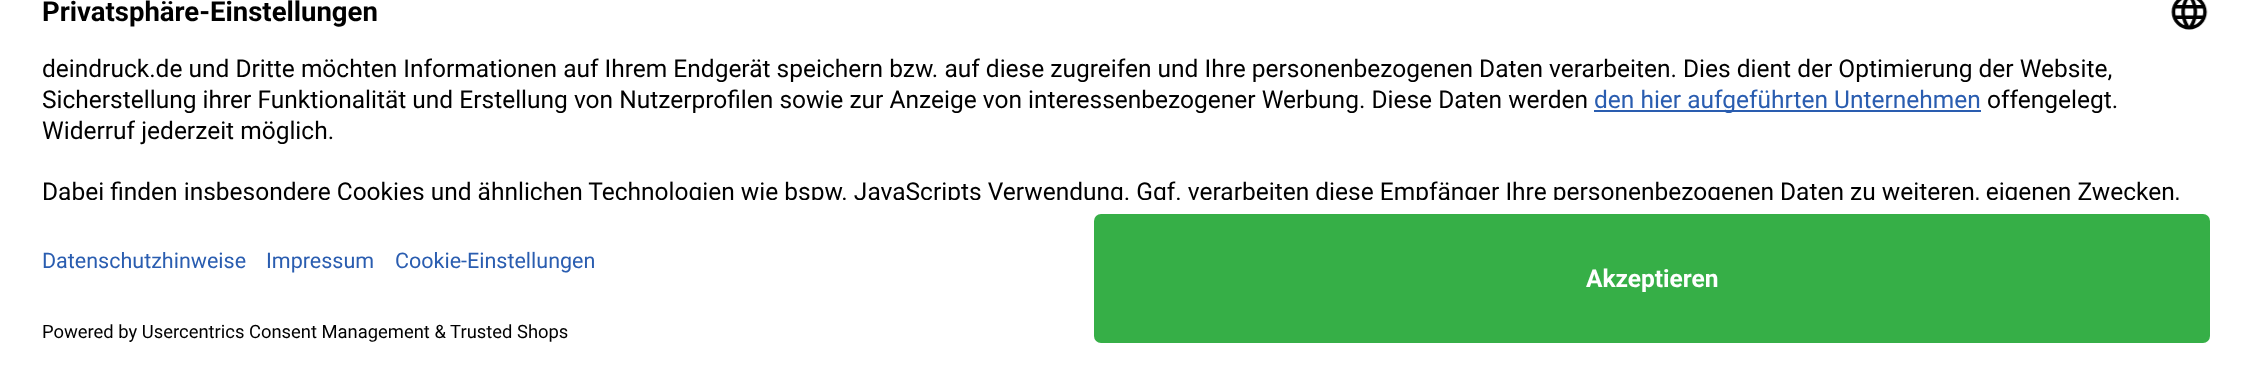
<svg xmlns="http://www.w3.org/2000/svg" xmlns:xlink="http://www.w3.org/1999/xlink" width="2251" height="384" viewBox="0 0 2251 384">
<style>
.cls-1{font:bold 27.5px Roboto;fill:#000000}
.cls-2{font:24.5px Roboto;fill:#000000}
.cls-3{font:24.5px Roboto;fill:#2a5db0}
.cls-4{font:21.5px Roboto;fill:#2a5db0}
.cls-5{font:18.4px Roboto;fill:#000000}
.cls-6{font:bold 24.5px Roboto;fill:#ffffff}
</style>
<defs>
<clipPath id="clip1"><path d="M14-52H2238C2245.5-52 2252-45.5 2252-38V200H0V-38C0-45.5 6.5-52 14-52Z"/></clipPath>
</defs>
<rect width="100%" height="100%" fill="#ffffff"/>
<image xlink:href="image0.png" x="2171" y="0" width="37" height="30"/>
<rect fill="#2a5db0" x="1594" y="110" width="387" height="2"/>
<rect fill="#36af47" x="1094" y="214" width="1116" height="129" rx="7"/>
<text class="cls-1" x="42" y="21">Privatsphäre-Einstellungen</text>
<text class="cls-2"><tspan x="42" y="77">deindruck.de und Dritte möchten Informationen auf Ihrem Endgerät speichern bzw. auf diese zugreifen und Ihre personenbezogenen Daten verarbeiten. Dies dient der Optimierung der Website,</tspan><tspan x="42" y="108">Sicherstellung ihrer Funktionalität und Erstellung von Nutzerprofilen sowie zur Anzeige von interessenbezogener Werbung. Diese Daten werden</tspan></text>
<text class="cls-3" x="1594" y="108">den hier aufgeführten Unternehmen</text>
<text class="cls-2" x="1987" y="108">offengelegt.</text>
<text class="cls-2" x="42" y="139">Widerruf jederzeit möglich.</text>
<g clip-path="url(#clip1)">
<text class="cls-2" x="42" y="200">Dabei finden insbesondere Cookies und ähnlichen Technologien wie bspw. JavaScripts Verwendung. Ggf. verarbeiten diese Empfänger Ihre personenbezogenen Daten zu weiteren, eigenen Zwecken,</text>
</g>
<text class="cls-4" x="42" y="268">Datenschutzhinweise</text>
<text class="cls-4" x="266" y="268">Impressum</text>
<text class="cls-4" x="395" y="268">Cookie-Einstellungen</text>
<text class="cls-5" x="42" y="338">Powered by Usercentrics Consent Management &amp; Trusted Shops</text>
<text class="cls-6" x="1586" y="287">Akzeptieren</text>
</svg>
